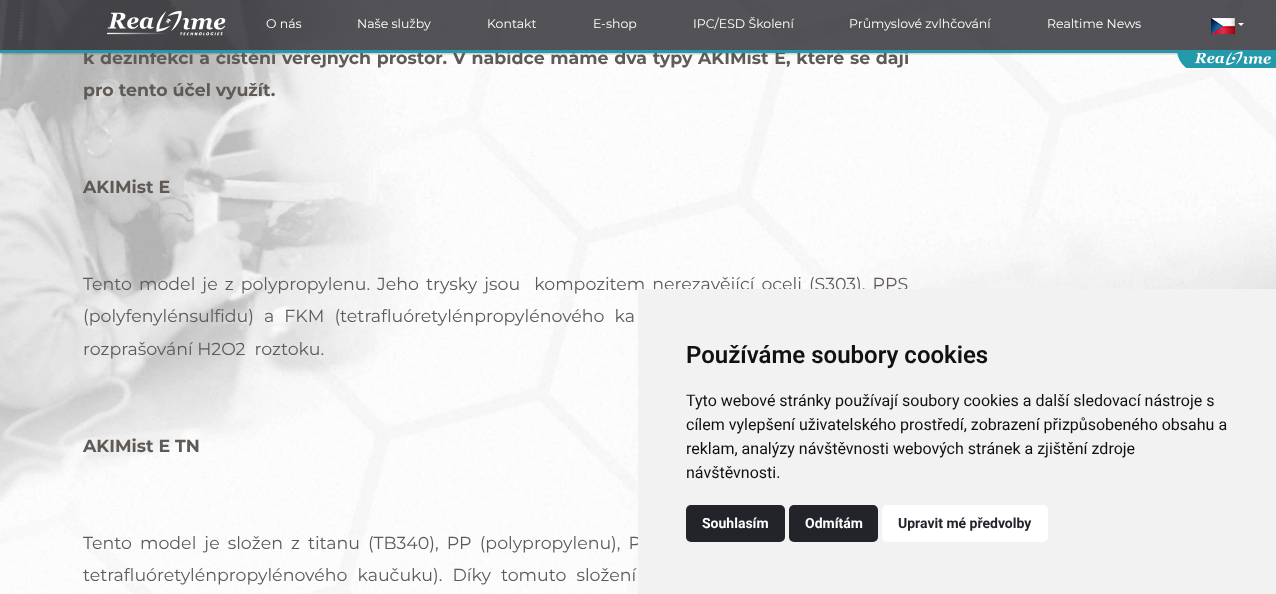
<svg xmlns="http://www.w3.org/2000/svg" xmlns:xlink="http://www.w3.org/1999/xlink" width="1276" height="594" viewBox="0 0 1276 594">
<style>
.cls-1{font:12.5px Montserrat;fill:#ffffff}
.cls-2{font:bold 17.4px Montserrat;fill:#5f5a56}
.cls-3{font:17.4px Montserrat;fill:#5f5a56}
.cls-4{font:600 24px Roboto;fill:#111111}
.cls-5{font:16px Roboto;fill:#111111}
.cls-6{font:bold 14px Roboto;fill:#ffffff}
.cls-7{font:bold 14px Roboto;fill:#22242a}
</style>
<defs>
<clipPath id="clip1"><rect x="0" y="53" width="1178" height="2"/></clipPath>
</defs>
<rect width="100%" height="100%" fill="#ffffff"/>
<image xlink:href="image0.png" x="0" y="0" width="1276" height="594"/>
<g clip-path="url(#clip1)">
<rect fill="#000000" fill-opacity="0.23" filter="blur(1px)" x="0" y="1" width="1276" height="53"/>
</g>
<rect fill="#232328" fill-opacity="0.78" x="0" y="0" width="1276" height="50"/>
<image xlink:href="image1.png" x="107" y="10" width="119" height="26"/>
<image xlink:href="image2.png" x="1211" y="18" width="24" height="16"/>
<path fill="#ffffff" d="M1238 23H1244L1241 26Z"/>
<text class="cls-1" x="266" y="28">O nás</text>
<text class="cls-1" x="357" y="28">Naše služby</text>
<text class="cls-1" x="487" y="28">Kontakt</text>
<text class="cls-1" x="593" y="28">E-shop</text>
<text class="cls-1" x="693" y="28">IPC/ESD Školení</text>
<text class="cls-1" x="849" y="28">Průmyslové zvlhčování</text>
<text class="cls-1" x="1047" y="28">Realtime News</text>
<text class="cls-2" x="83" y="64" word-spacing="0.75">k dezinfekci a čištění veřejných prostor. V nabídce máme dva typy AKIMist E, které se dají</text>
<rect fill="#2599a9" x="0" y="50" width="1276" height="3"/>
<image xlink:href="image3.png" x="1177" y="51" width="99" height="17"/>
<text class="cls-2" x="83" y="96">pro tento účel využít.</text>
<text class="cls-2" x="83" y="193">AKIMist E</text>
<text class="cls-3" xml:space="preserve"><tspan x="83" y="290" word-spacing="2.5">Tento model je z polypropylenu. Jeho trysky jsou  kompozitem nerezavějící oceli (S303), PPS</tspan><tspan x="83" y="322" word-spacing="5.5">(polyfenylénsulfidu) a FKM (tetrafluóretylénpropylénového ka</tspan><tspan x="83" y="355">rozprašování H2O2  roztoku.</tspan></text>
<text class="cls-2" x="83" y="452">AKIMist E TN</text>
<text class="cls-3"><tspan x="83" y="549" word-spacing="3.5">Tento model je složen z titanu (TB340), PP (polypropylenu), P</tspan><tspan x="83" y="581" word-spacing="5.5">tetrafluóretylénpropylénového kaučuku). Díky tomuto složení</tspan></text>
<rect fill="#f2f2f2" x="638" y="289" width="638" height="305"/>
<text class="cls-4" x="686" y="363">Používáme soubory cookies</text>
<text class="cls-5"><tspan x="686" y="406">Tyto webové stránky používají soubory cookies a další sledovací nástroje s</tspan><tspan x="686" y="430">cílem vylepšení uživatelského prostředí, zobrazení přizpůsobeného obsahu a</tspan><tspan x="686" y="454">reklam, analýzy návštěvnosti webových stránek a zjištění zdroje</tspan><tspan x="686" y="478">návštěvnosti.</tspan></text>
<rect fill="#22242a" x="686" y="505" width="99" height="37" rx="5"/>
<text class="cls-6" x="702" y="528">Souhlasím</text>
<rect fill="#22242a" x="789" y="505" width="89" height="37" rx="5"/>
<text class="cls-6" x="805" y="528">Odmítám</text>
<rect fill="#ffffff" x="882" y="505" width="166" height="37" rx="5"/>
<text class="cls-7" x="898" y="528">Upravit mé předvolby</text>
</svg>
